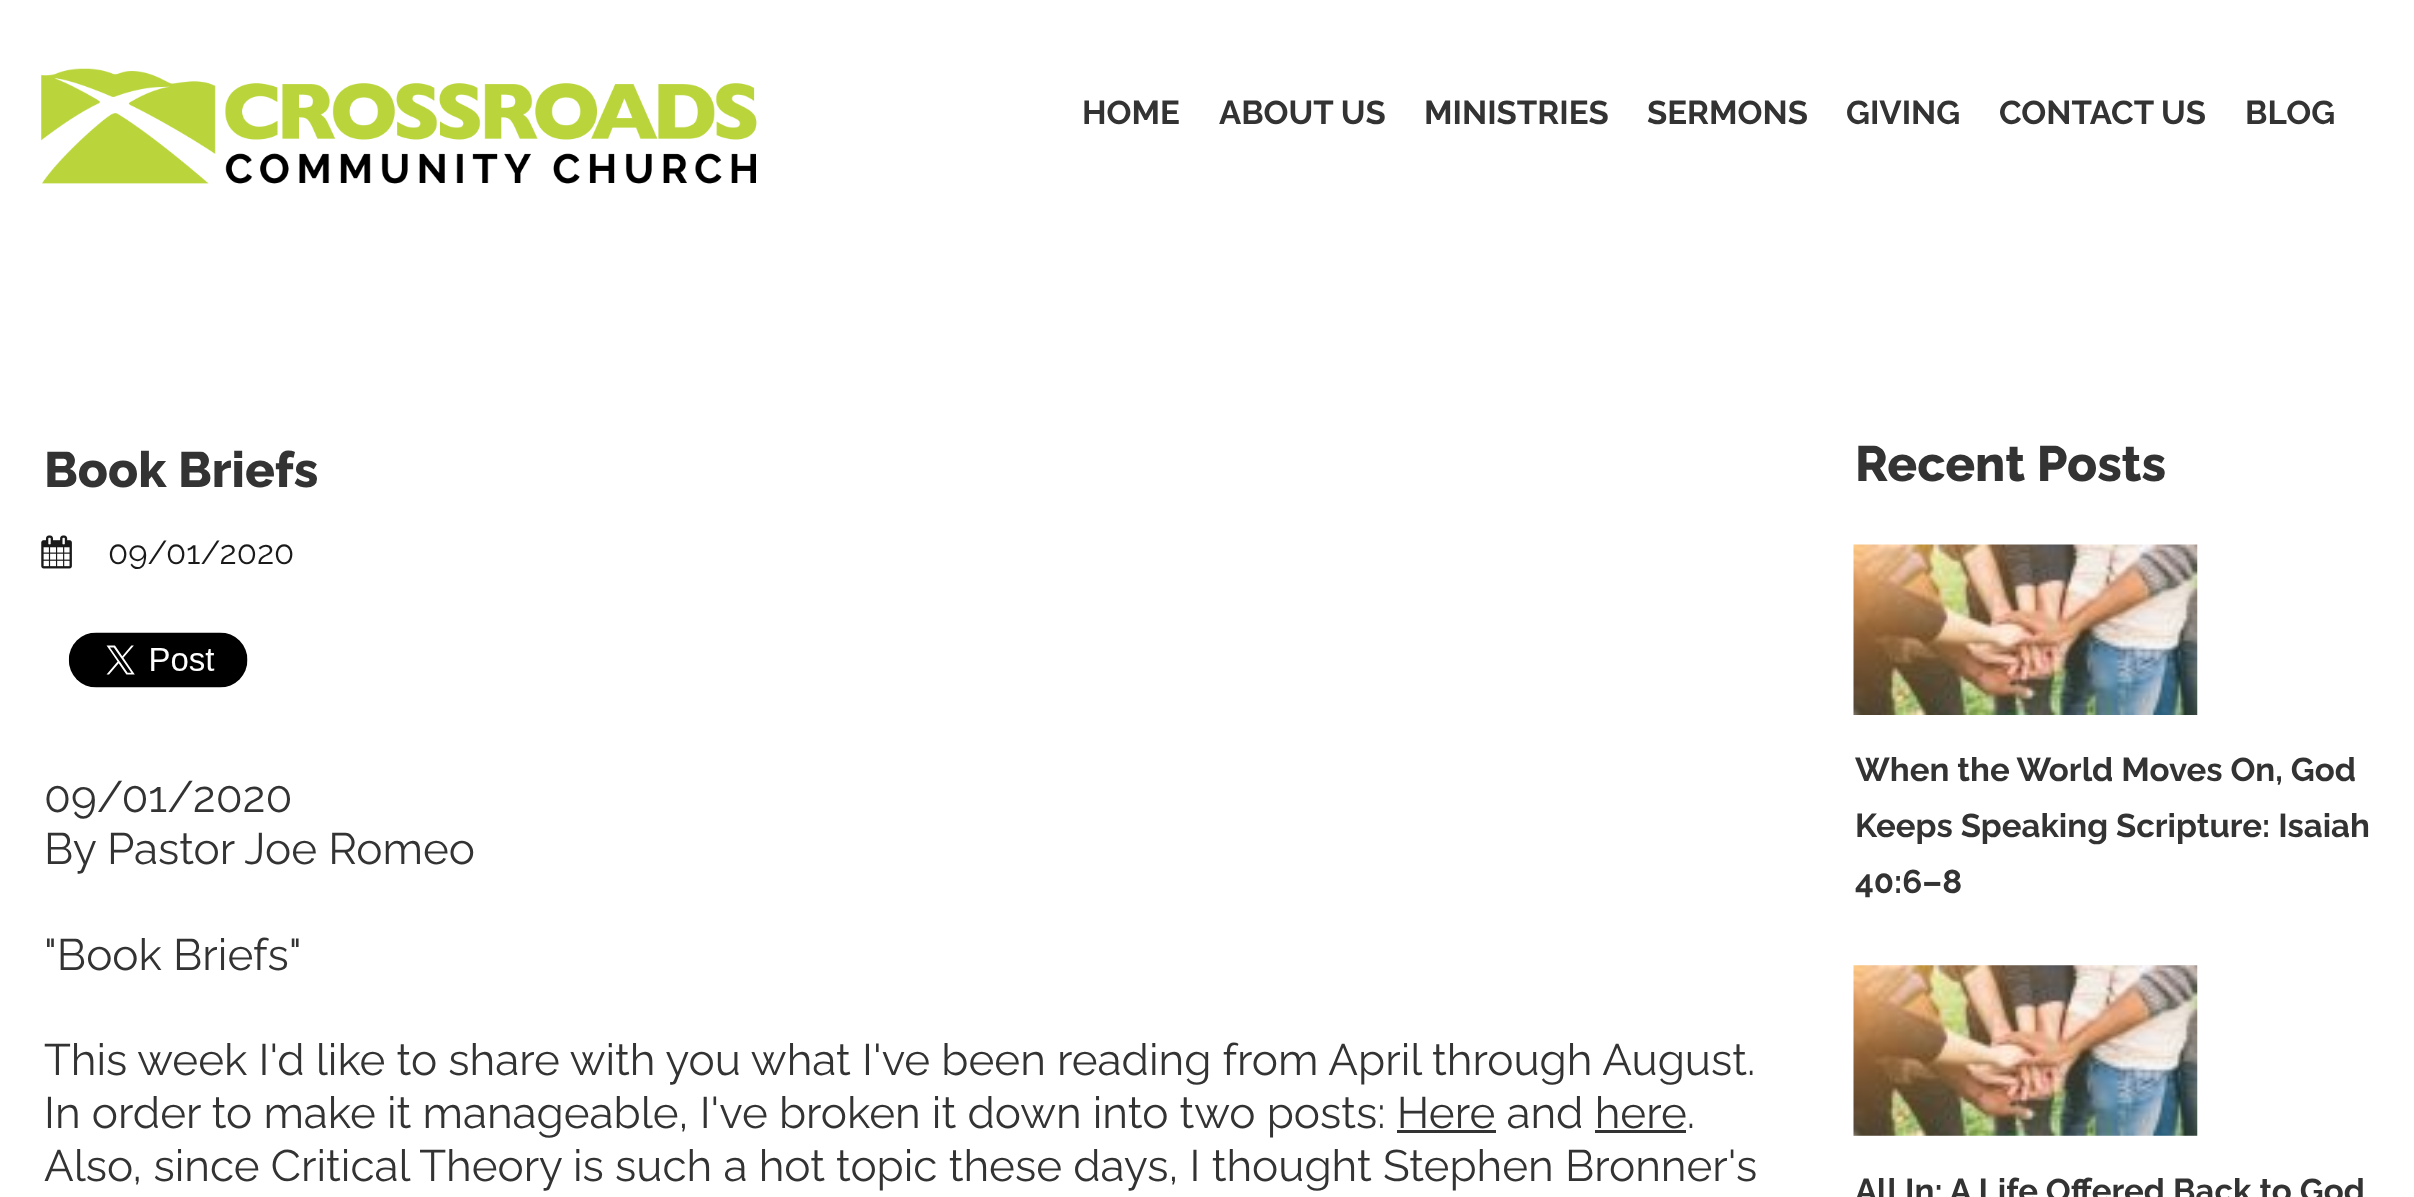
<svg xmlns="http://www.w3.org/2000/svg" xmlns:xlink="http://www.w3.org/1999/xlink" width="2414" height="1197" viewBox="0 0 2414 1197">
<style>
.cls-1{font:bold 33px Raleway;fill:#333333}
.cls-2{font:800 49.5px Raleway;fill:#333333}
.cls-3{font:33px Raleway;fill:#1a1a1a}
.cls-4{font:44px Raleway;fill:#333333}
</style>
<rect width="100%" height="100%" fill="#ffffff"/>
<image xlink:href="image0.png" x="41" y="68" width="716" height="116"/>
<image xlink:href="image1.png" x="41" y="535" width="31" height="34"/>
<image xlink:href="image2.png" x="68" y="632" width="180" height="56"/>
<rect fill="#333333" x="1397" y="1130" width="99" height="3"/>
<rect fill="#333333" x="1595" y="1130" width="91" height="3"/>
<image xlink:href="image3.png" x="1853" y="544" width="345" height="171"/>
<image xlink:href="image4.png" x="1853" y="965" width="345" height="171"/>
<text class="cls-1" x="1082" y="124">HOME</text>
<text class="cls-1" x="1219" y="124">ABOUT US</text>
<text class="cls-1" x="1424" y="124">MINISTRIES</text>
<text class="cls-1" x="1647" y="124">SERMONS</text>
<text class="cls-1" x="1846" y="124">GIVING</text>
<text class="cls-1" x="1999" y="124">CONTACT US</text>
<text class="cls-1" x="2245" y="124">BLOG</text>
<text class="cls-2" x="44" y="487">Book Briefs</text>
<text class="cls-3" x="108" y="564">09/01/2020</text>
<text class="cls-4"><tspan x="44" y="812">09/01/2020</tspan><tspan x="44" y="864">By Pastor Joe Romeo</tspan></text>
<text class="cls-4" x="44" y="970">"Book Briefs"</text>
<text class="cls-4"><tspan x="44" y="1075">This week I'd like to share with you what I've been reading from April through August.</tspan><tspan x="44" y="1128">In order to make it manageable, I've broken it down into two posts: Here and here.</tspan><tspan x="44" y="1181">Also, since Critical Theory is such a hot topic these days, I thought Stephen Bronner's</tspan></text>
<text class="cls-2" x="1855" y="481">Recent Posts</text>
<text class="cls-1"><tspan x="1855" y="781">When the World Moves On, God</tspan><tspan x="1855" y="837">Keeps Speaking Scripture: Isaiah</tspan><tspan x="1855" y="893">40:6–8</tspan></text>
<text class="cls-1" x="1855" y="1202">All In: A Life Offered Back to God</text>
</svg>
